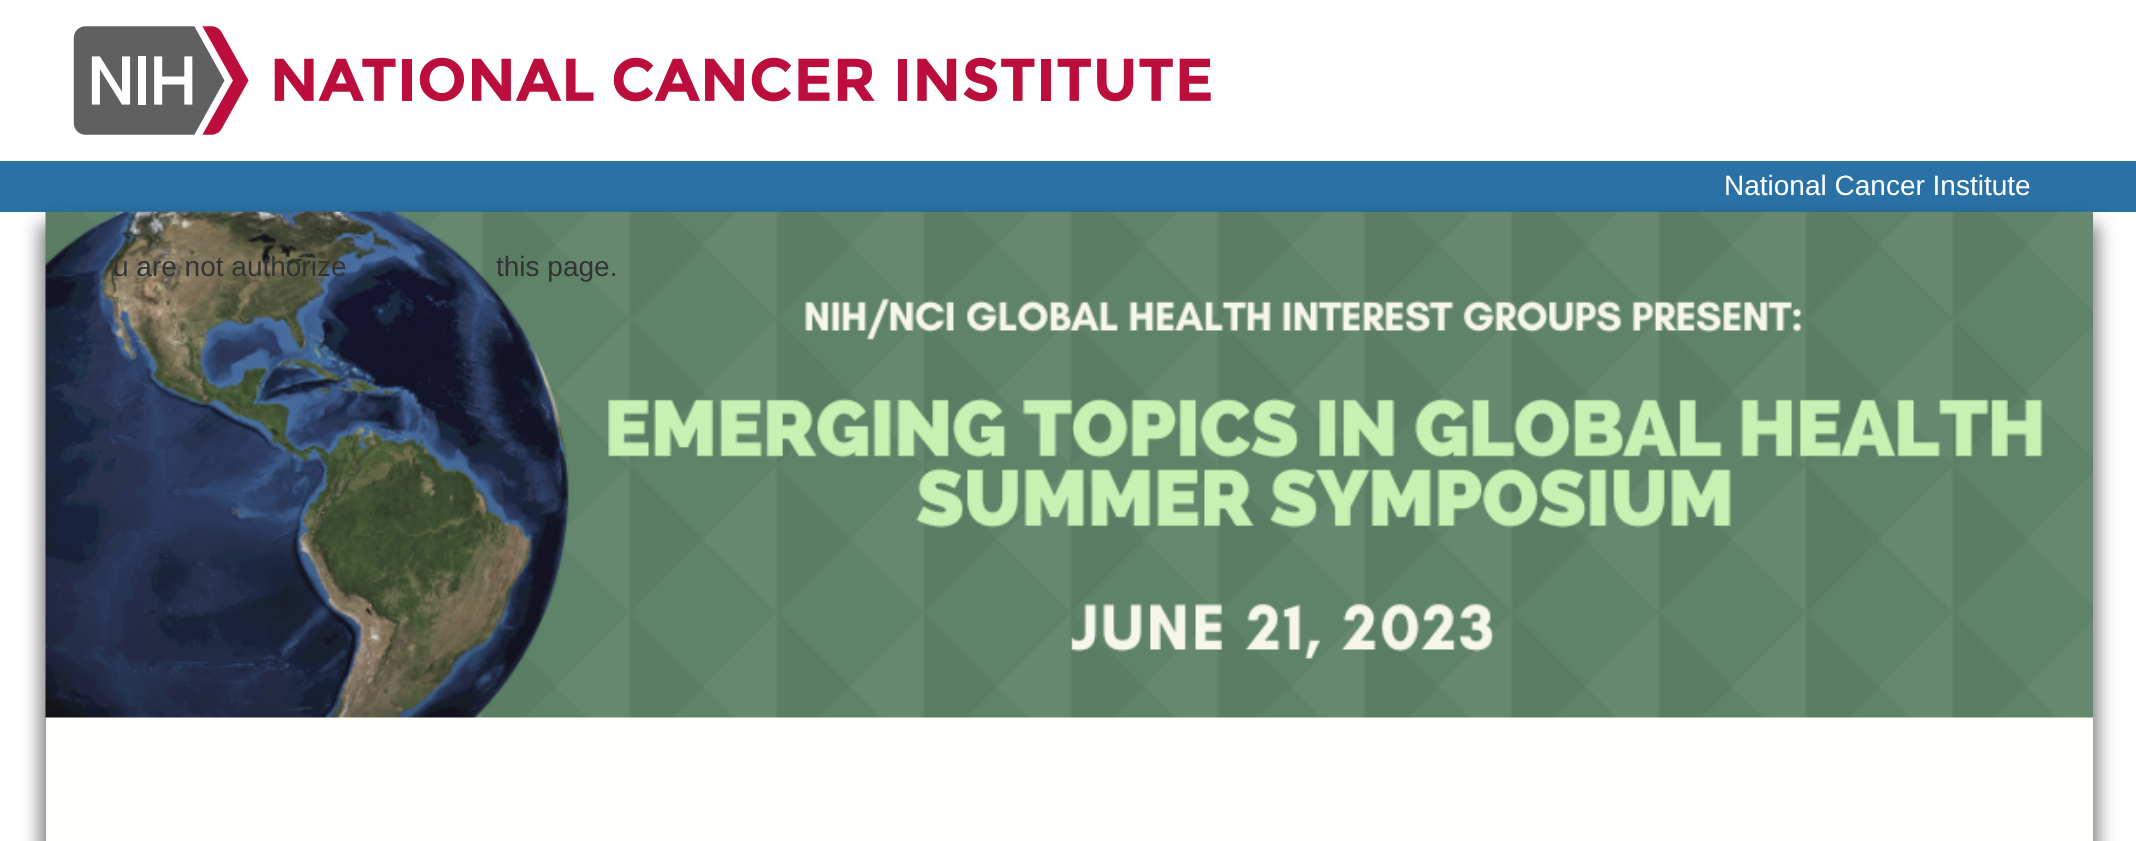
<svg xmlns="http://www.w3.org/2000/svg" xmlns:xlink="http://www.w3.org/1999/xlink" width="2136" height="841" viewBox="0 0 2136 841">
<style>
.cls-1{font:28px Liberation Sans;fill:#ffffff}
.cls-2{font:28px Liberation Sans;fill:#333333}
</style>
<rect width="100%" height="100%" fill="#ffffff"/>
<image xlink:href="image0.png" x="73" y="26" width="1138" height="109"/>
<rect fill="#2a71a5" x="0" y="161" width="2136" height="51"/>
<rect fill="#000000" fill-opacity="0.5" filter="blur(9px)" x="40" y="224" width="2023" height="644"/>
<rect fill="#000000" fill-opacity="0.5" filter="blur(9px)" x="75" y="224" width="2023" height="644"/>
<rect fill="#fffffb" x="46" y="717" width="2047" height="124"/>
<image xlink:href="image1.png" x="45" y="211" width="2048" height="507"/>
<text class="cls-1" x="1724" y="195">National Cancer Institute</text>
<text class="cls-2" x="113" y="276">u are not authorize</text>
<text class="cls-2" x="496" y="276">this page.</text>
</svg>
